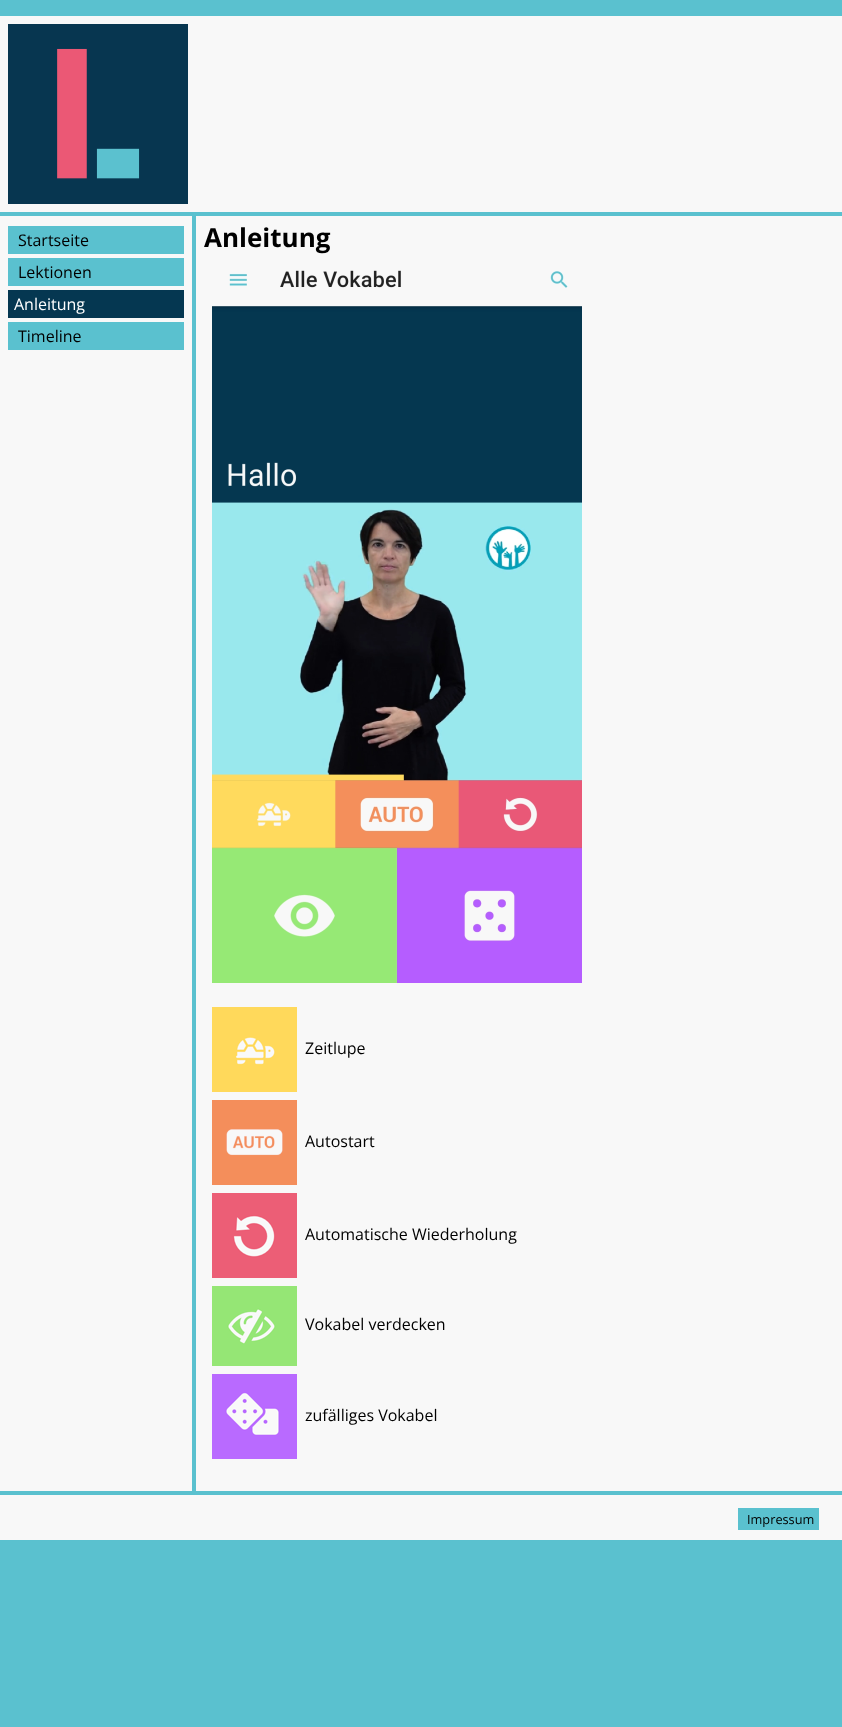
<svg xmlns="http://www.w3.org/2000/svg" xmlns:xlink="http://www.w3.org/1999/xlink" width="842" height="1727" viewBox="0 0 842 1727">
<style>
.cls-1{font:16px Open Sans;fill:#000000}
.cls-2{font:16px Open Sans;fill:#ffffff}
.cls-3{font:bold 26px Open Sans;fill:#000000}
.cls-4{font:12.75px Open Sans;fill:#000000}
</style>
<rect width="100%" height="100%" fill="#5ac1cf"/>
<rect fill="#f8f8f8" x="0" y="16" width="842" height="1524"/>
<rect fill="#5ac1cf" x="0" y="212" width="842" height="4"/>
<image xlink:href="image0.png" x="8" y="24" width="180" height="180"/>
<rect fill="#5ac1cf" x="8" y="226" width="176" height="28"/>
<rect fill="#5ac1cf" x="8" y="258" width="176" height="28"/>
<rect fill="#053751" x="8" y="290" width="176" height="28"/>
<rect fill="#5ac1cf" x="8" y="322" width="176" height="28"/>
<rect fill="#5ac1cf" x="192" y="216" width="4" height="1275"/>
<image xlink:href="image1.png" x="212" y="270" width="370" height="713"/>
<image xlink:href="image2.png" x="212" y="1007" width="85" height="85"/>
<image xlink:href="image3.png" x="212" y="1100" width="85" height="85"/>
<image xlink:href="image4.png" x="212" y="1193" width="85" height="85"/>
<image xlink:href="image5.png" x="212" y="1286" width="85" height="80"/>
<image xlink:href="image6.png" x="212" y="1374" width="85" height="85"/>
<rect fill="#5ac1cf" x="0" y="1491" width="842" height="4"/>
<rect fill="#5ac1cf" x="738" y="1508" width="81" height="22"/>
<text class="cls-1" x="18" y="246">Startseite</text>
<text class="cls-1" x="18" y="278">Lektionen</text>
<text class="cls-2" x="14" y="310">Anleitung</text>
<text class="cls-1" x="18" y="342">Timeline</text>
<text class="cls-3" x="204" y="247">Anleitung</text>
<text class="cls-1" x="305" y="1054">Zeitlupe</text>
<text class="cls-1" x="305" y="1147">Autostart</text>
<text class="cls-1" x="305" y="1240">Automatische Wiederholung</text>
<text class="cls-1" x="305" y="1330">Vokabel verdecken</text>
<text class="cls-1" x="305" y="1421">zufälliges Vokabel</text>
<text class="cls-4" x="747" y="1524">Impressum</text>
</svg>
